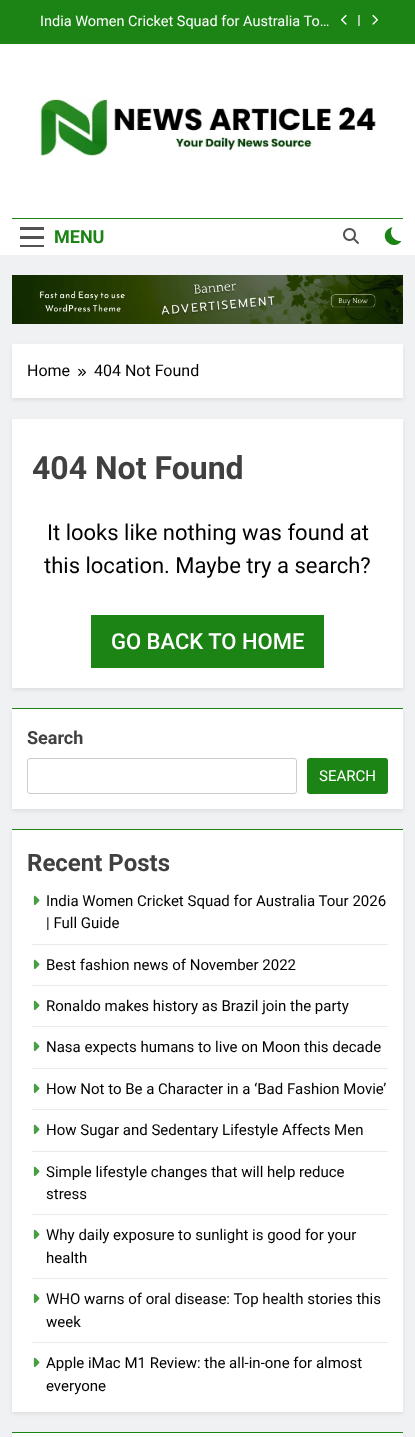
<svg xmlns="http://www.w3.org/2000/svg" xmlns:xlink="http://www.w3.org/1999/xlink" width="415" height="1437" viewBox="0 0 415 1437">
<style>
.cls-1{font:14.5px Roboto;fill:#ffffff}
.cls-2{font:bold 18px Roboto;fill:#1b8415}
.cls-3{font:16px Roboto;fill:#000000}
.cls-4{font:bold 32px Roboto;fill:#404040}
.cls-5{font:22px Roboto;fill:#000000}
.cls-6{font:500 22px Roboto;fill:#ffffff}
.cls-7{font:bold 18px Roboto;fill:#404040}
.cls-8{font:15px Roboto;fill:#ffffff}
.cls-9{font:bold 24px Roboto;fill:#404040}
.cls-10{font:15px Roboto;fill:#000000}
</style>
<rect width="100%" height="100%" fill="#f0f1f2"/>
<rect fill="#1b8415" x="0" y="0" width="415" height="44"/>
<image xlink:href="image0.png" x="341" y="15" width="6" height="10"/>
<rect fill="#a4cea1" x="358" y="15" width="2" height="11"/>
<image xlink:href="image1.png" x="372" y="15" width="6" height="10"/>
<rect fill="#ffffff" x="0" y="44" width="415" height="211"/>
<image xlink:href="image2.png" x="39" y="99" width="337" height="57"/>
<rect fill="#1b8415" x="12" y="218" width="391" height="1"/>
<rect fill="#525252" x="20" y="227" width="24" height="3"/>
<rect fill="#525252" x="20" y="236" width="24" height="3"/>
<rect fill="#525252" x="20" y="245" width="24" height="2"/>
<image xlink:href="image3.png" x="343" y="228" width="16" height="16"/>
<path fill="#1b8415" d="M401.5 241C394 242 388 234 392.5 227C389.5 227.5 387.5 229.5 386 231.5C380.5 241.5 395.5 250.5 401.5 241Z"/>
<image xlink:href="image4.png" x="12" y="275" width="391" height="49"/>
<rect fill="#000000" fill-opacity="0.08" filter="blur(2px)" x="12" y="346" width="391" height="54"/>
<rect fill="#ffffff" x="12" y="344" width="391" height="54"/>
<image xlink:href="image5.png" x="78" y="368" width="8" height="8"/>
<rect fill="#000000" fill-opacity="0.08" filter="blur(2px)" x="12" y="421" width="391" height="269"/>
<rect fill="#ffffff" x="12" y="419" width="391" height="269"/>
<rect fill="#1b8415" x="91" y="615" width="233" height="53"/>
<rect fill="#000000" fill-opacity="0.08" filter="blur(2px)" x="12" y="711" width="391" height="100"/>
<rect fill="#ffffff" x="12" y="709" width="391" height="100"/>
<rect fill="#1b8415" x="12" y="708" width="391" height="1"/>
<rect fill="none" stroke="#cccccc" x="27.5" y="758.5" width="269" height="35" rx="2.5"/>
<rect fill="#1b8415" x="307" y="758" width="81" height="36" rx="3"/>
<rect fill="#000000" fill-opacity="0.08" filter="blur(2px)" x="12" y="832" width="391" height="582"/>
<rect fill="#ffffff" x="12" y="830" width="391" height="582"/>
<rect fill="#1b8415" x="12" y="829" width="391" height="1"/>
<rect fill="#eaeaea" x="32" y="944" width="356" height="1"/>
<image xlink:href="image6.png" x="33" y="895" width="7" height="10"/>
<rect fill="#eaeaea" x="32" y="985" width="356" height="1"/>
<image xlink:href="image6.png" x="33" y="959" width="7" height="10"/>
<rect fill="#eaeaea" x="32" y="1026" width="356" height="1"/>
<image xlink:href="image6.png" x="33" y="1000" width="7" height="10"/>
<rect fill="#eaeaea" x="32" y="1068" width="356" height="1"/>
<image xlink:href="image6.png" x="33" y="1041" width="7" height="10"/>
<rect fill="#eaeaea" x="32" y="1109" width="356" height="1"/>
<image xlink:href="image6.png" x="33" y="1083" width="7" height="10"/>
<rect fill="#eaeaea" x="32" y="1151" width="356" height="1"/>
<image xlink:href="image6.png" x="33" y="1124" width="7" height="10"/>
<rect fill="#eaeaea" x="32" y="1214" width="356" height="1"/>
<image xlink:href="image6.png" x="33" y="1166" width="7" height="10"/>
<rect fill="#eaeaea" x="32" y="1278" width="356" height="1"/>
<image xlink:href="image6.png" x="33" y="1229" width="7" height="10"/>
<rect fill="#eaeaea" x="32" y="1342" width="356" height="1"/>
<image xlink:href="image6.png" x="33" y="1293" width="7" height="10"/>
<image xlink:href="image6.png" x="33" y="1357" width="7" height="10"/>
<rect fill="#000000" fill-opacity="0.08" filter="blur(2px)" x="12" y="1435" width="391" height="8"/>
<rect fill="#ffffff" x="12" y="1433" width="391" height="4"/>
<rect fill="#1b8415" x="12" y="1432" width="391" height="1"/>
<text class="cls-1" x="40" y="26">India Women Cricket Squad for Australia To…</text>
<text class="cls-2" x="54" y="243">MENU</text>
<text class="cls-3" x="27" y="376">Home</text>
<text class="cls-3" x="94" y="376">404 Not Found</text>
<text class="cls-4" x="32" y="479">404 Not Found</text>
<text class="cls-5" x="47" y="540">It looks like nothing was found at</text>
<text class="cls-5" x="44" y="573">this location. Maybe try a search?</text>
<text class="cls-6" x="111" y="649">GO BACK TO HOME</text>
<text class="cls-7" x="27" y="744">Search</text>
<text class="cls-8" x="319" y="781">SEARCH</text>
<text class="cls-9" x="27" y="871">Recent Posts</text>
<text class="cls-10"><tspan x="46" y="906">India Women Cricket Squad for Australia Tour 2026</tspan><tspan x="46" y="928">| Full Guide</tspan></text>
<text class="cls-10" x="46" y="970">Best fashion news of November 2022</text>
<text class="cls-10" x="46" y="1011">Ronaldo makes history as Brazil join the party</text>
<text class="cls-10" x="46" y="1052">Nasa expects humans to live on Moon this decade</text>
<text class="cls-10" x="46" y="1094">How Not to Be a Character in a ‘Bad Fashion Movie’</text>
<text class="cls-10" x="46" y="1135">How Sugar and Sedentary Lifestyle Affects Men</text>
<text class="cls-10"><tspan x="46" y="1177">Simple lifestyle changes that will help reduce</tspan><tspan x="46" y="1199">stress</tspan></text>
<text class="cls-10"><tspan x="46" y="1240">Why daily exposure to sunlight is good for your</tspan><tspan x="46" y="1263">health</tspan></text>
<text class="cls-10"><tspan x="46" y="1304">WHO warns of oral disease: Top health stories this</tspan><tspan x="46" y="1327">week</tspan></text>
<text class="cls-10"><tspan x="46" y="1368">Apple iMac M1 Review: the all-in-one for almost</tspan><tspan x="46" y="1391">everyone</tspan></text>
</svg>
